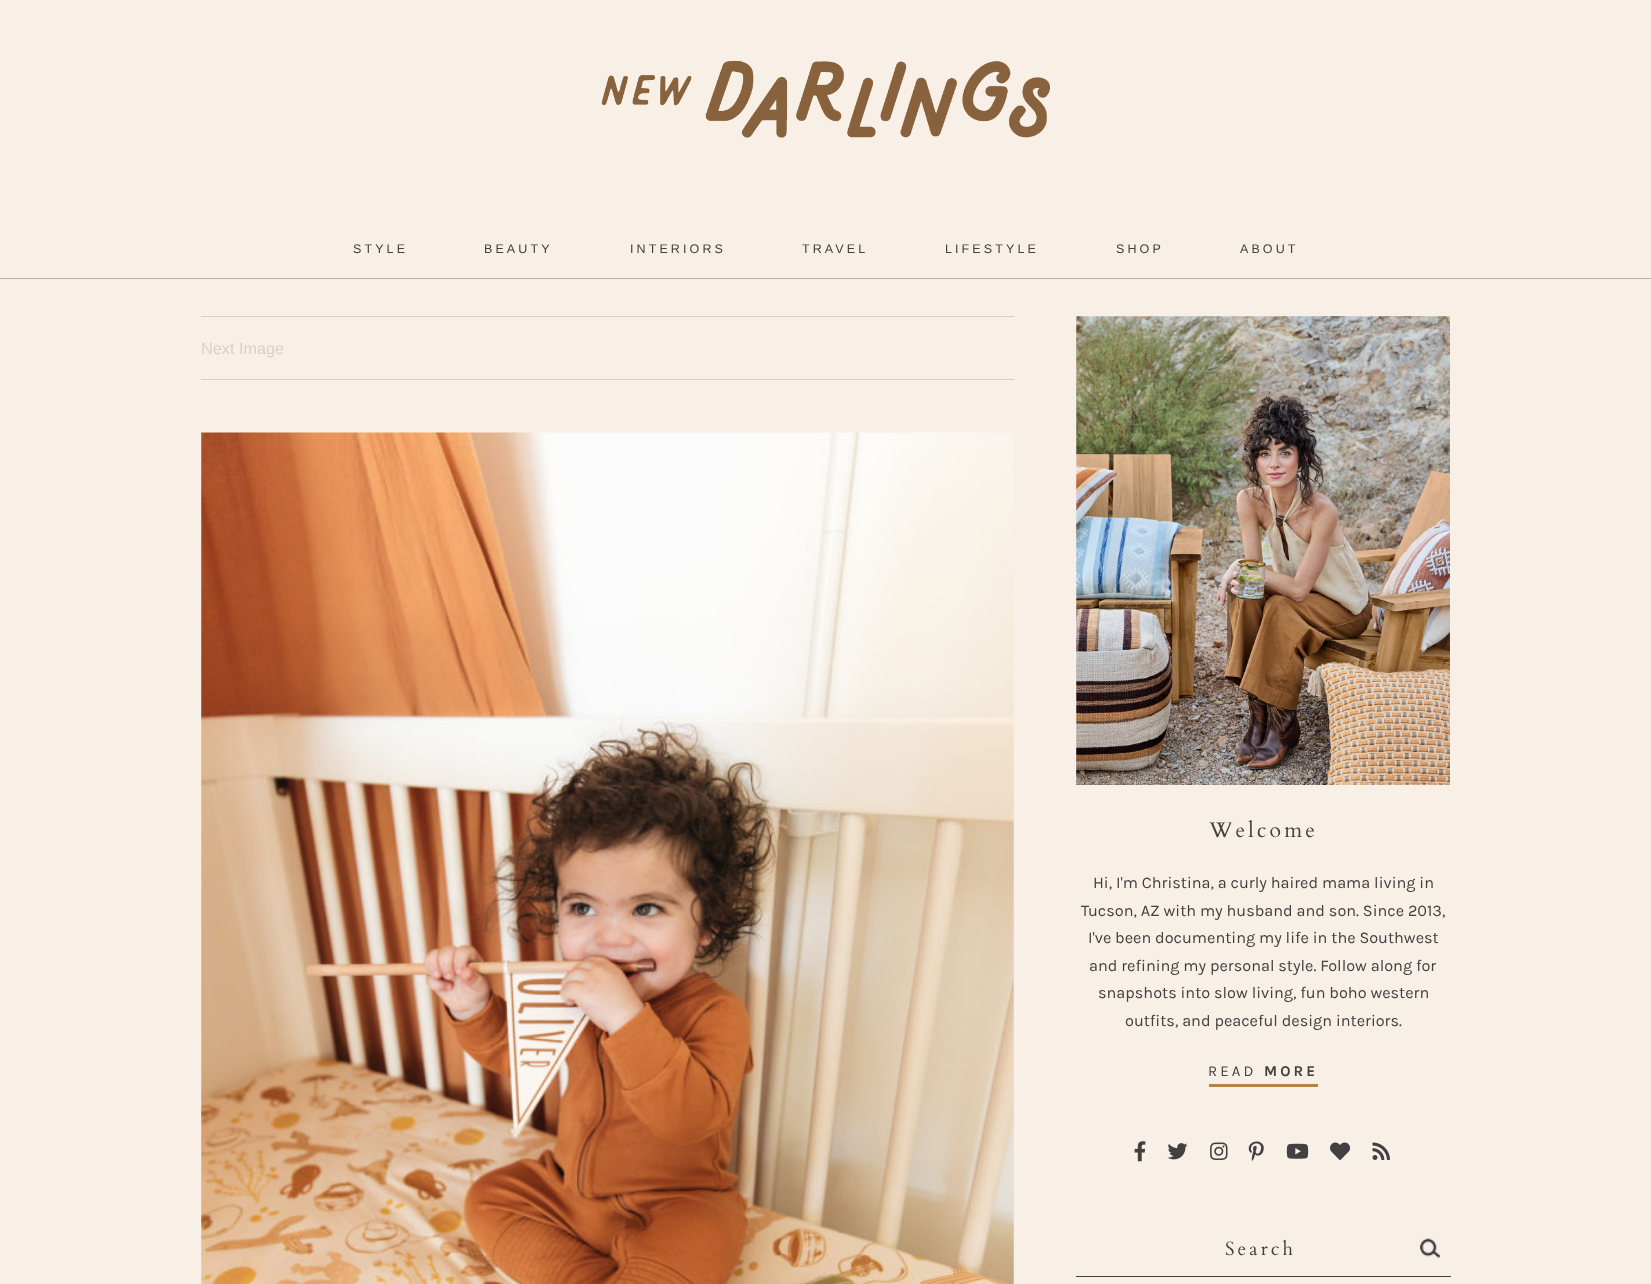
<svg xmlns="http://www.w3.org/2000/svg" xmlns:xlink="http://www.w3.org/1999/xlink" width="1651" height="1284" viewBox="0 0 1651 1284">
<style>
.cls-1{font:12.5px Liberation Sans;letter-spacing:3.1px;fill:#424040}
.cls-2{font:16.25px Liberation Sans;fill:#dccfcb}
.cls-3{font:21.25px Cardo;letter-spacing:3.1px;fill:#424040}
.cls-4{font:16.25px Karla;fill:#424040}
.cls-5{font:15px Karla;letter-spacing:3.1px;fill:#424040}
.cls-6{font:bold 15px Karla;letter-spacing:3.1px;fill:#424040}
.cls-7{font:19px Cardo;letter-spacing:3.1px;fill:#424040}
</style>
<rect width="100%" height="100%" fill="#f8efe7"/>
<image xlink:href="image0.png" x="601" y="60" width="449" height="78"/>
<rect fill="#b1b1b1" x="0" y="278" width="1651" height="1"/>
<rect fill="#d1d1d1" x="201" y="316" width="813" height="1"/>
<rect fill="#d1d1d1" x="201" y="379" width="813" height="1"/>
<image xlink:href="image1.png" x="201" y="432" width="813" height="852"/>
<image xlink:href="image2.png" x="1076" y="316" width="374" height="469"/>
<rect fill="#b78246" x="1209" y="1084" width="109" height="3"/>
<image xlink:href="image3.png" x="1134" y="1141" width="12" height="21"/>
<image xlink:href="image4.png" x="1167" y="1143" width="21" height="17"/>
<image xlink:href="image5.png" x="1210" y="1142" width="18" height="18"/>
<image xlink:href="image6.png" x="1248" y="1141" width="16" height="20"/>
<image xlink:href="image7.png" x="1286" y="1143" width="23" height="16"/>
<image xlink:href="image8.png" x="1330" y="1142" width="20" height="18"/>
<image xlink:href="image9.png" x="1372" y="1142" width="18" height="18"/>
<image xlink:href="image10.png" x="1420" y="1238" width="20" height="20"/>
<rect fill="#424040" x="1076" y="1276" width="375" height="1"/>
<text class="cls-1" x="353" y="253">STYLE</text>
<text class="cls-1" x="484" y="253">BEAUTY</text>
<text class="cls-1" x="630" y="253">INTERIORS</text>
<text class="cls-1" x="802" y="253">TRAVEL</text>
<text class="cls-1" x="945" y="253">LIFESTYLE</text>
<text class="cls-1" x="1116" y="253">SHOP</text>
<text class="cls-1" x="1240" y="253">ABOUT</text>
<text class="cls-2" x="201" y="354">Next Image</text>
<text class="cls-3" x="1209" y="837">Welcome</text>
<text class="cls-4" x="1093" y="888">Hi, I'm Christina, a curly haired mama living in</text>
<text class="cls-4" x="1081" y="916">Tucson, AZ with my husband and son. Since 2013,</text>
<text class="cls-4" x="1088" y="943">I've been documenting my life in the Southwest</text>
<text class="cls-4" x="1089" y="971">and refining my personal style. Follow along for</text>
<text class="cls-4" x="1098" y="998">snapshots into slow living, fun boho western</text>
<text class="cls-4" x="1125" y="1026">outfits, and peaceful design interiors.</text>
<text class="cls-5" x="1208" y="1076">READ</text>
<text class="cls-6" x="1264" y="1076">MORE</text>
<text class="cls-7" x="1225" y="1255">Search</text>
</svg>
